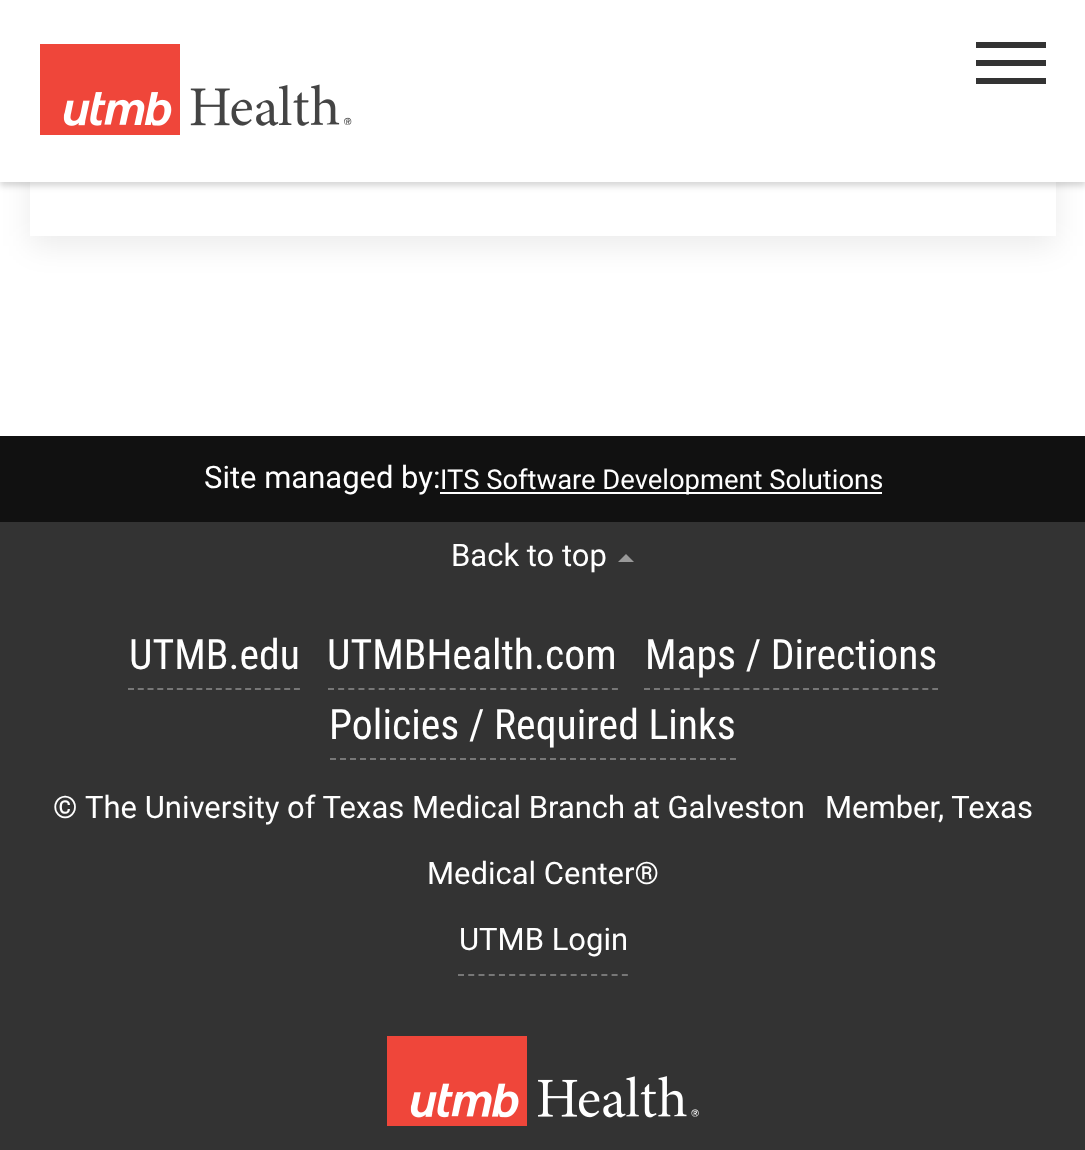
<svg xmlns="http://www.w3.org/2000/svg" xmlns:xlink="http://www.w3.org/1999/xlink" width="1085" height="1150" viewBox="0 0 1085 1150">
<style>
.cls-1{font:31px Roboto;fill:#ffffff}
.cls-2{font:27.4px Roboto;fill:#ffffff}
.cls-3{font:41.75px Roboto Condensed;fill:#ffffff}
</style>
<defs>
<clipPath id="clip1"><path d="M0 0H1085V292H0ZM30-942H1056V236H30Z" clip-rule="evenodd"/></clipPath>
</defs>
<rect width="100%" height="100%" fill="#ffffff"/>
<g clip-path="url(#clip1)">
<rect fill="#000000" fill-opacity="0.08" filter="blur(15px)" x="30" y="-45" width="1026" height="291"/>
</g>
<rect fill="#000000" fill-opacity="0.16" filter="blur(3px)" x="0" y="4" width="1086" height="182"/>
<rect fill="#ffffff" x="0" y="0" width="1085" height="182"/>
<image xlink:href="image0.png" x="40" y="44" width="312" height="91"/>
<rect fill="#333333" x="976" y="42" width="70" height="6"/>
<rect fill="#333333" x="976" y="60" width="70" height="6"/>
<rect fill="#333333" x="976" y="78" width="70" height="6"/>
<rect fill="#333333" x="0" y="522" width="1085" height="628"/>
<rect fill="#111111" x="0" y="436" width="1085" height="86"/>
<rect fill="#ffffff" x="440" y="492" width="442" height="2"/>
<path fill="#999999" d="M634 562H618L626 554Z"/>
<path fill="none" stroke="#777777" stroke-width="2" stroke-dasharray="6 3.76" d="M128 689H300"/>
<path fill="none" stroke="#777777" stroke-width="2" stroke-dasharray="6 4.14" d="M328 689H618"/>
<path fill="none" stroke="#777777" stroke-width="2" stroke-dasharray="6 3.94" d="M644 689H938"/>
<path fill="none" stroke="#777777" stroke-width="2" stroke-dasharray="6 4" d="M330 759H736"/>
<path fill="none" stroke="#777777" stroke-width="2" stroke-dasharray="6 4.24" d="M458 975H628"/>
<image xlink:href="image1.png" x="387" y="1036" width="312" height="90"/>
<text class="cls-1" x="204" y="488">Site managed by:</text>
<text class="cls-2" x="440" y="489">ITS Software Development Solutions</text>
<text class="cls-1" x="451" y="566">Back to top</text>
<text class="cls-3" x="129" y="669">UTMB.edu</text>
<text class="cls-3" x="327" y="669">UTMBHealth.com</text>
<text class="cls-3" x="645" y="669">Maps / Directions</text>
<text class="cls-3" x="329" y="739">Policies / Required Links</text>
<text class="cls-1" x="53" y="818">©</text>
<text class="cls-1" x="85" y="818">The University of Texas Medical Branch at Galveston</text>
<text class="cls-1" x="825" y="818">Member, Texas</text>
<text class="cls-1" x="427" y="884">Medical Center®</text>
<text class="cls-1" x="459" y="950">UTMB Login</text>
</svg>
